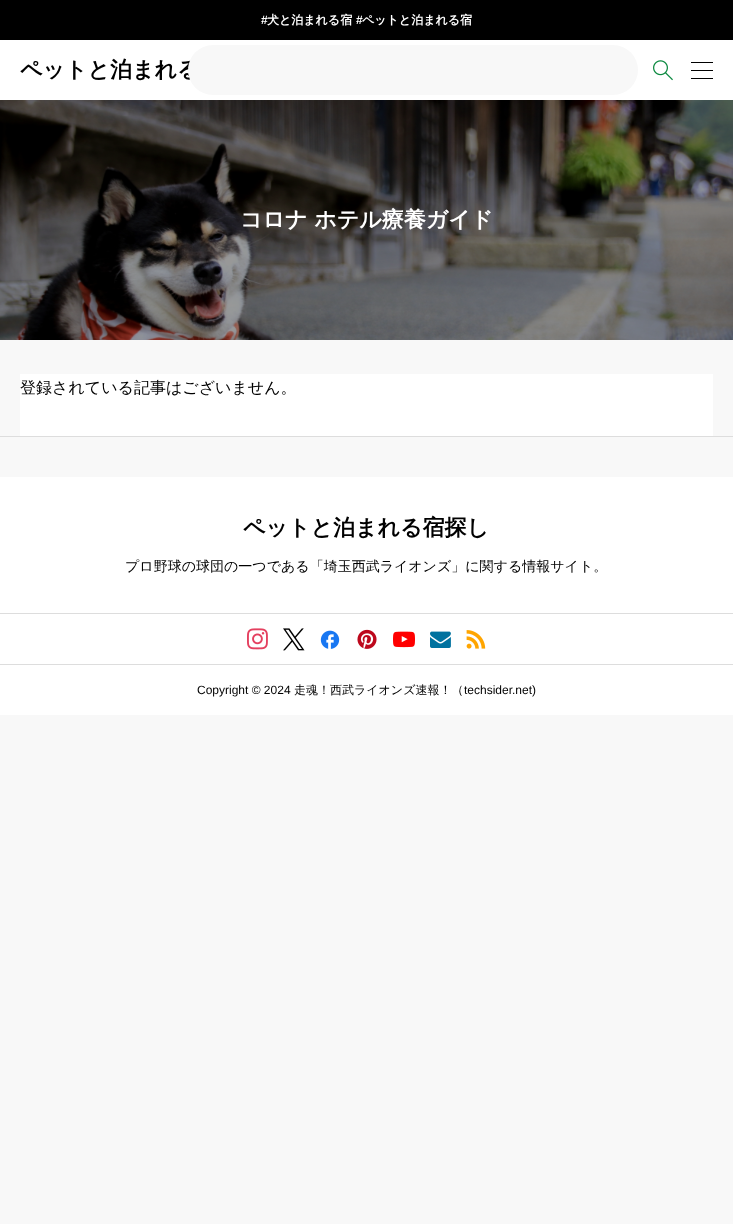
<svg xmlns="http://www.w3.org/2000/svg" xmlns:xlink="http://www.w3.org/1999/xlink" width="733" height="1224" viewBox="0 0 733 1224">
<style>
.cls-1{font:bold 12px Liberation Sans;fill:#ffffff}
.cls-2{font:bold 12px WenQuanYi Zen Hei;fill:#ffffff}
.cls-3{font:bold 22px WenQuanYi Zen Hei;fill:#000000}
.cls-4{font:bold 22px WenQuanYi Zen Hei;fill:#ffffff}
.cls-5{font:500 16px WenQuanYi Zen Hei;fill:#000000}
.cls-6{font:500 14px WenQuanYi Zen Hei;fill:#000000}
.cls-7{font:12px Liberation Sans;fill:#000000}
.cls-8{font:500 12px WenQuanYi Zen Hei;fill:#000000}
</style>
<rect width="100%" height="100%" fill="#f8f8f8"/>
<rect fill="#000000" x="0" y="0" width="733" height="40"/>
<rect fill="#ffffff" x="0" y="40" width="733" height="60"/>
<image xlink:href="image0.png" x="653" y="60" width="20" height="21"/>
<rect fill="#000000" x="691" y="62" width="22" height="1"/>
<rect fill="#000000" x="691" y="70" width="22" height="1"/>
<rect fill="#000000" x="691" y="78" width="22" height="1"/>
<image xlink:href="image1.png" x="0" y="100" width="733" height="240"/>
<rect fill="#ffffff" x="20" y="374" width="693" height="62"/>
<rect fill="#dddddd" x="0" y="436" width="733" height="1"/>
<rect fill="#ffffff" x="0" y="477" width="733" height="238"/>
<rect fill="#dddddd" x="0" y="613" width="733" height="1"/>
<image xlink:href="image2.png" x="247" y="628" width="21" height="22"/>
<image xlink:href="image3.png" x="283" y="628" width="22" height="23"/>
<image xlink:href="image4.png" x="320" y="630" width="20" height="19"/>
<image xlink:href="image5.png" x="357" y="629" width="20" height="20"/>
<image xlink:href="image6.png" x="393" y="631" width="22" height="17"/>
<image xlink:href="image7.png" x="430" y="631" width="21" height="17"/>
<image xlink:href="image8.png" x="466" y="630" width="20" height="19"/>
<rect fill="#dddddd" x="0" y="664" width="733" height="1"/>
<text class="cls-1" x="261" y="24">#</text>
<text class="cls-2" x="267" y="24">犬と泊まれる宿</text>
<text class="cls-1" x="356" y="24">#</text>
<text class="cls-2" x="362" y="24">ペットと泊まれる宿</text>
<text class="cls-3" x="20" y="77">ペットと泊まれる</text>
<rect fill="#f8f8f8" x="188" y="45" width="450" height="50" rx="25"/>
<text class="cls-4" x="240" y="227">コロナ ホテル療養ガイド</text>
<text class="cls-5" x="20" y="393">登録されている記事はございません。</text>
<text class="cls-3" x="243" y="535">ペットと泊まれる宿探し</text>
<text class="cls-6" x="125" y="571">プロ野球の球団の一つである「埼玉西武ライオンズ」に関する情報サイト。</text>
<text class="cls-7" x="197" y="694">Copyright © 2024</text>
<text class="cls-8" x="294" y="694">走魂！西武ライオンズ速報！（</text>
<text class="cls-7" x="464" y="694">techsider.net)</text>
</svg>
